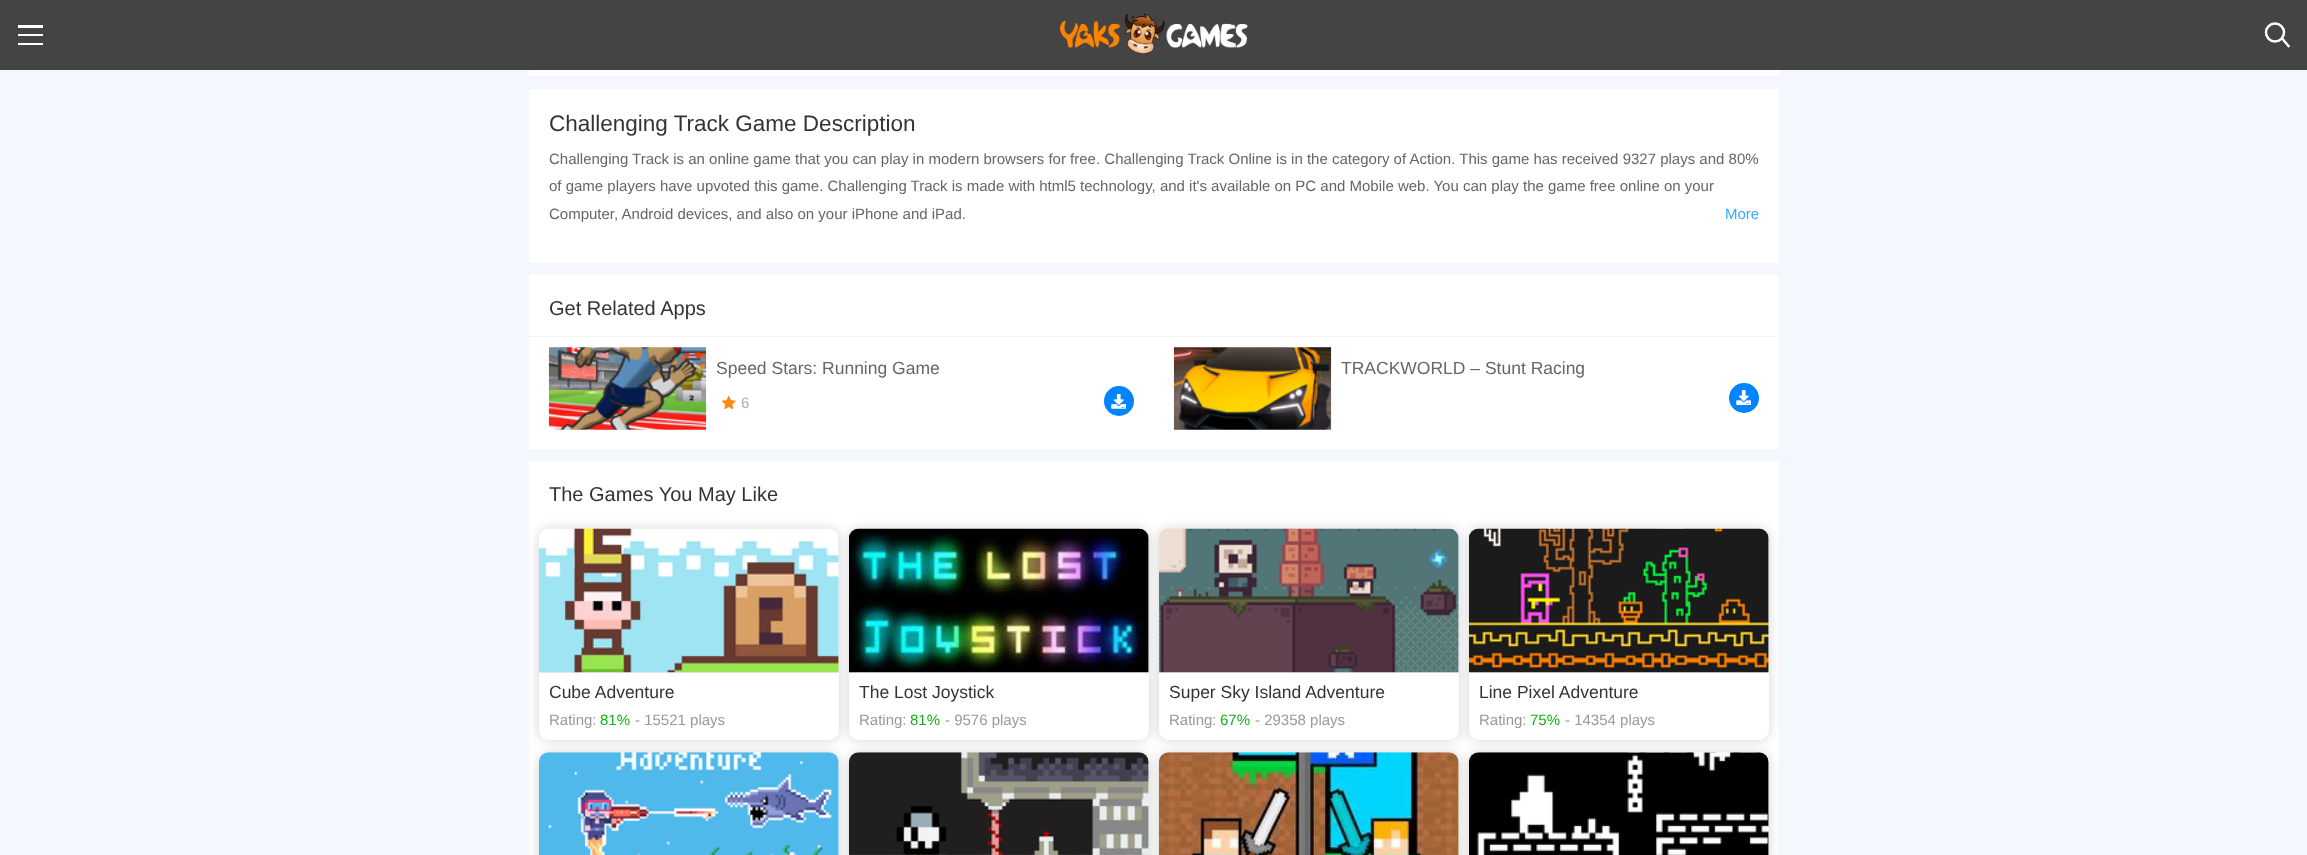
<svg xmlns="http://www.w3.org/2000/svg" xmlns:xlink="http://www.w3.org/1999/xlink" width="2307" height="855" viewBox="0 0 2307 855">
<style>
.cls-1{font:22.5px Liberation Sans;fill:#333333}
.cls-2{font:15px Liberation Sans;fill:#666666}
.cls-3{font:15px Liberation Sans;fill:#37aafd}
.cls-4{font:20px Liberation Sans;fill:#333333}
.cls-5{font:17.5px Liberation Sans;fill:#666666}
.cls-6{font:15px Liberation Sans;fill:#adadad}
.cls-7{font:17.5px Liberation Sans;fill:#333333}
.cls-8{font:15px Liberation Sans;fill:#999999}
.cls-9{font:15px Liberation Sans;fill:#14b21d}
</style>
<rect width="100%" height="100%" fill="#f4f7fe"/>
<rect fill="#444444" x="0" y="0" width="2307" height="70"/>
<rect fill="#ffffff" x="18" y="25" width="25" height="3"/>
<rect fill="#ffffff" x="18" y="34" width="25" height="2"/>
<rect fill="#ffffff" x="18" y="43" width="25" height="2"/>
<image xlink:href="image0.png" x="1060" y="13" width="188" height="41"/>
<circle fill="none" stroke="#ffffff" stroke-width="2.5" cx="2275" cy="32.5" r="9"/>
<path fill="none" stroke="#ffffff" stroke-width="2.5" stroke-linecap="square" d="M2282.5 39L2288.5 46"/>
<rect fill="#ffffff" x="529" y="70" width="1250" height="6"/>
<rect fill="#ffffff" x="529" y="89" width="1250" height="174"/>
<rect fill="#ffffff" x="529" y="275" width="1250" height="174"/>
<rect fill="#f3f3f3" x="529" y="336" width="1250" height="1"/>
<image xlink:href="image1.png" x="548" y="347" width="159" height="83"/>
<image xlink:href="image2.png" x="721" y="395" width="15" height="15"/>
<circle fill="#0284fe" cx="1119" cy="401" r="15"/>
<image xlink:href="image3.png" x="1111" y="394" width="15" height="15"/>
<image xlink:href="image4.png" x="1173" y="347" width="159" height="83"/>
<circle fill="#0284fe" cx="1744" cy="398" r="15"/>
<image xlink:href="image5.png" x="1736" y="390" width="15" height="15"/>
<rect fill="#ffffff" x="529" y="461" width="1250" height="394"/>
<rect fill="#000000" fill-opacity="0.17" filter="blur(6px)" x="539" y="529" width="300" height="211" rx="10"/>
<rect fill="#ffffff" x="539" y="529" width="300" height="211" rx="10"/>
<rect fill="#000000" fill-opacity="0.17" filter="blur(6px)" x="849" y="529" width="300" height="211" rx="10"/>
<path fill="#e9eff2" d="M549 529H829C834.5 529 839 533.5 839 539V673H539V539C539 533.5 543.5 529 549 529Z"/>
<image xlink:href="image6.png" x="539" y="528" width="300" height="145"/>
<rect fill="#ffffff" x="849" y="529" width="300" height="211" rx="10"/>
<rect fill="#000000" fill-opacity="0.17" filter="blur(6px)" x="1159" y="529" width="300" height="211" rx="10"/>
<path fill="#e9eff2" d="M859 529H1139C1144.5 529 1149 533.5 1149 539V673H849V539C849 533.5 853.5 529 859 529Z"/>
<image xlink:href="image7.png" x="849" y="528" width="300" height="145"/>
<rect fill="#ffffff" x="1159" y="529" width="300" height="211" rx="10"/>
<rect fill="#000000" fill-opacity="0.17" filter="blur(6px)" x="1469" y="529" width="300" height="211" rx="10"/>
<path fill="#e9eff2" d="M1169 529H1449C1454.5 529 1459 533.5 1459 539V673H1159V539C1159 533.5 1163.5 529 1169 529Z"/>
<image xlink:href="image8.png" x="1159" y="528" width="300" height="145"/>
<rect fill="#ffffff" x="1469" y="529" width="300" height="211" rx="10"/>
<path fill="#e9eff2" d="M1479 529H1759C1764.5 529 1769 533.5 1769 539V673H1469V539C1469 533.5 1473.5 529 1479 529Z"/>
<image xlink:href="image9.png" x="1469" y="528" width="300" height="145"/>
<rect fill="#000000" fill-opacity="0.17" filter="blur(6px)" x="539" y="753" width="300" height="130" rx="10"/>
<rect fill="#000000" fill-opacity="0.17" filter="blur(6px)" x="849" y="753" width="300" height="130" rx="10"/>
<path fill="#e9eff2" d="M549 753H829C834.5 753 839 757.5 839 763V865H539V763C539 757.5 543.5 753 549 753Z"/>
<image xlink:href="image10.png" x="539" y="752" width="300" height="103"/>
<rect fill="#000000" fill-opacity="0.17" filter="blur(6px)" x="1159" y="753" width="300" height="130" rx="10"/>
<path fill="#e9eff2" d="M859 753H1139C1144.5 753 1149 757.5 1149 763V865H849V763C849 757.5 853.5 753 859 753Z"/>
<image xlink:href="image11.png" x="849" y="752" width="300" height="103"/>
<rect fill="#000000" fill-opacity="0.17" filter="blur(6px)" x="1469" y="753" width="300" height="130" rx="10"/>
<path fill="#e9eff2" d="M1169 753H1449C1454.5 753 1459 757.5 1459 763V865H1159V763C1159 757.5 1163.5 753 1169 753Z"/>
<image xlink:href="image12.png" x="1159" y="752" width="300" height="103"/>
<path fill="#e9eff2" d="M1479 753H1759C1764.5 753 1769 757.5 1769 763V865H1469V763C1469 757.5 1473.5 753 1479 753Z"/>
<image xlink:href="image13.png" x="1469" y="752" width="300" height="103"/>
<text class="cls-1" x="549" y="131">Challenging Track Game Description</text>
<text class="cls-2"><tspan x="549" y="164">Challenging Track is an online game that you can play in modern browsers for free. Challenging Track Online is in the category of Action. This game has received 9327 plays and 80%</tspan><tspan x="549" y="191">of game players have upvoted this game. Challenging Track is made with html5 technology, and it's available on PC and Mobile web. You can play the game free online on your</tspan><tspan x="549" y="219">Computer, Android devices, and also on your iPhone and iPad.</tspan></text>
<text class="cls-3" x="1725" y="219">More</text>
<text class="cls-4" x="549" y="315">Get Related Apps</text>
<text class="cls-5" x="716" y="374">Speed Stars: Running Game</text>
<text class="cls-6" x="741" y="408">6</text>
<text class="cls-5" x="1341" y="374">TRACKWORLD – Stunt Racing</text>
<text class="cls-4" x="549" y="501">The Games You May Like</text>
<text class="cls-7" x="549" y="698">Cube Adventure</text>
<text class="cls-8" x="549" y="725">Rating:</text>
<text class="cls-9" x="600" y="725">81%</text>
<text class="cls-8" x="635" y="725">- 15521 plays</text>
<text class="cls-7" x="859" y="698">The Lost Joystick</text>
<text class="cls-8" x="859" y="725">Rating:</text>
<text class="cls-9" x="910" y="725">81%</text>
<text class="cls-8" x="945" y="725">- 9576 plays</text>
<text class="cls-7" x="1169" y="698">Super Sky Island Adventure</text>
<text class="cls-8" x="1169" y="725">Rating:</text>
<text class="cls-9" x="1220" y="725">67%</text>
<text class="cls-8" x="1255" y="725">- 29358 plays</text>
<text class="cls-7" x="1479" y="698">Line Pixel Adventure</text>
<text class="cls-8" x="1479" y="725">Rating:</text>
<text class="cls-9" x="1530" y="725">75%</text>
<text class="cls-8" x="1565" y="725">- 14354 plays</text>
</svg>
